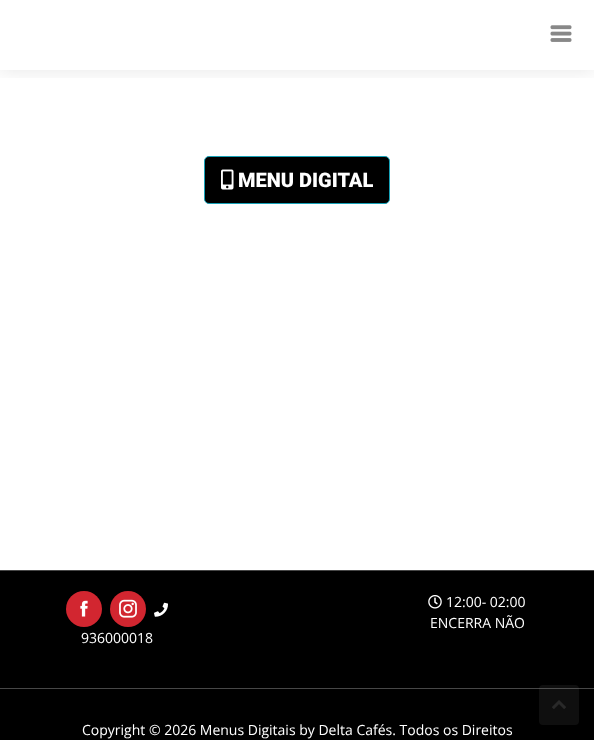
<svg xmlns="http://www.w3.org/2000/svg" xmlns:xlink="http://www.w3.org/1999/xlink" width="594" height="740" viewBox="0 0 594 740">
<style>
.cls-1{font:900 20px Roboto;fill:#ffffff}
.cls-2{font:14px Open Sans;fill:#ffffff}
</style>
<defs>
<clipPath id="clip1"><rect x="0" y="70" width="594" height="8"/></clipPath>
</defs>
<rect width="100%" height="100%" fill="#ffffff"/>
<g clip-path="url(#clip1)">
<rect fill="#000000" fill-opacity="0.1" filter="blur(10px)" x="0" y="0" width="594" height="70"/>
</g>
<image xlink:href="image0.png" x="550" y="25" width="22" height="17"/>
<rect fill="#000000" stroke="#17a2b8" x="204.5" y="156.5" width="185" height="47" rx="4.5"/>
<image xlink:href="image1.png" x="221" y="169" width="13" height="21"/>
<rect fill="#000000" x="0" y="571" width="594" height="169"/>
<rect fill="#474747" x="0" y="570" width="594" height="1"/>
<rect fill="#474747" x="0" y="688" width="594" height="1"/>
<image xlink:href="image2.png" x="428" y="595" width="14" height="14"/>
<circle fill="#d22630" cx="84" cy="609" r="18"/>
<image xlink:href="image3.png" x="80" y="600" width="8" height="17"/>
<circle fill="#d22630" cx="128" cy="609" r="18"/>
<image xlink:href="image4.png" x="119" y="599" width="18" height="19"/>
<image xlink:href="image5.png" x="154" y="602" width="14" height="15"/>
<rect fill="#8d8685" fill-opacity="0.11" x="539" y="685" width="40" height="40" rx="4"/>
<image xlink:href="image6.png" x="552" y="700" width="14" height="9"/>
<text class="cls-1" x="238" y="187">MENU DIGITAL</text>
<text class="cls-2" x="446" y="607">12:00- 02:00</text>
<text class="cls-2" x="430" y="628">ENCERRA NÃO</text>
<text class="cls-2" x="81" y="643">936000018</text>
<text class="cls-2" x="82" y="735">Copyright © 2026 Menus Digitais by Delta Cafés. Todos os Direitos</text>
</svg>
